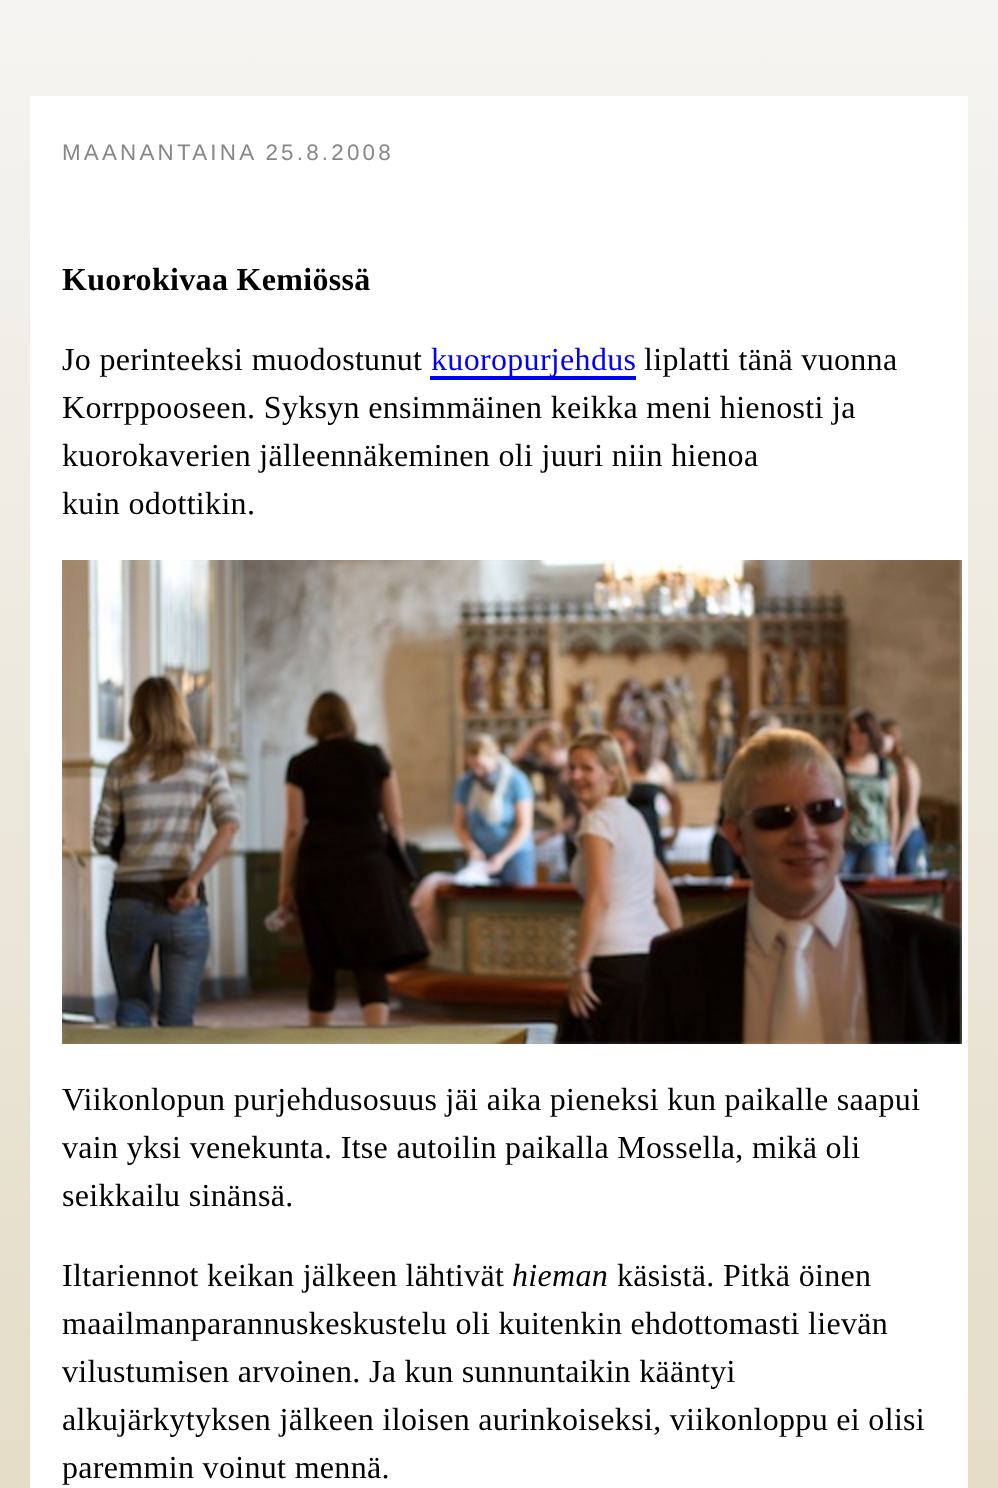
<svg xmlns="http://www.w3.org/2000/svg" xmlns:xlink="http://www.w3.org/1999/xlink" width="998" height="1488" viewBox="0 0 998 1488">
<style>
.cls-1{font:22.4px Liberation Sans;letter-spacing:3.2px;fill:#888888}
.cls-2{font:bold 32px Liberation Serif;letter-spacing:0.32px;fill:#000000}
.cls-3{font:32px Liberation Serif;letter-spacing:0.32px;fill:#000000}
.cls-4{font:32px Liberation Serif;letter-spacing:0.32px;fill:#0000ff}
.cls-5{font:italic 32px Liberation Serif;letter-spacing:0.32px;fill:#000000}
</style>
<defs>
<linearGradient id="g1" gradientUnits="userSpaceOnUse" x1="499" y1="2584" x2="499" y2="0"><stop offset="0" stop-color="#d8cba8"/><stop offset="1" stop-color="#f5f4f2"/></linearGradient>
</defs>
<rect width="100%" height="100%" fill="#ffffff"/>
<rect fill="url(#g1)" x="0" y="0" width="998" height="1488"/>
<rect fill="#ffffff" x="30" y="96" width="938" height="1392"/>
<rect fill="#0000ff" x="430" y="376" width="206" height="4"/>
<image xlink:href="image0.png" x="62" y="560" width="900" height="484"/>
<text class="cls-1" x="62" y="160">MAANANTAINA 25.8.2008</text>
<text class="cls-2" x="62" y="290">Kuorokivaa Kemiössä</text>
<text class="cls-3" x="62" y="370">Jo perinteeksi muodostunut</text>
<text class="cls-4" x="431" y="370">kuoropurjehdus</text>
<text class="cls-3" x="644" y="370">liplatti tänä vuonna</text>
<text class="cls-3"><tspan x="62" y="418">Korrppooseen. Syksyn ensimmäinen keikka meni hienosti ja</tspan><tspan x="62" y="466">kuorokaverien jälleennäkeminen oli juuri niin hienoa</tspan><tspan x="62" y="514">kuin odottikin.</tspan></text>
<text class="cls-3"><tspan x="62" y="1110">Viikonlopun purjehdusosuus jäi aika pieneksi kun paikalle saapui</tspan><tspan x="62" y="1158">vain yksi venekunta. Itse autoilin paikalla Mossella, mikä oli</tspan><tspan x="62" y="1206">seikkailu sinänsä.</tspan></text>
<text class="cls-3" x="62" y="1286">Iltariennot keikan jälkeen lähtivät</text>
<text class="cls-5" x="512" y="1286">hieman</text>
<text class="cls-3" x="617" y="1286">käsistä. Pitkä öinen</text>
<text class="cls-3"><tspan x="62" y="1334">maailmanparannuskeskustelu oli kuitenkin ehdottomasti lievän</tspan><tspan x="62" y="1382">vilustumisen arvoinen. Ja kun sunnuntaikin kääntyi</tspan><tspan x="62" y="1430">alkujärkytyksen jälkeen iloisen aurinkoiseksi, viikonloppu ei olisi</tspan><tspan x="62" y="1478">paremmin voinut mennä.</tspan></text>
</svg>
